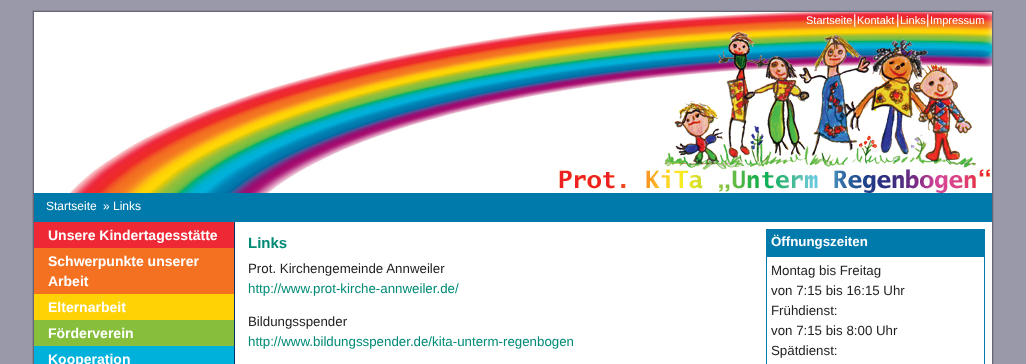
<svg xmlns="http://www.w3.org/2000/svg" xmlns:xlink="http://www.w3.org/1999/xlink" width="1026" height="364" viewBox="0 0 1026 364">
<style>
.cls-1{font:11px Liberation Sans;fill:#ffffff}
.cls-2{font:13.3px Liberation Sans;fill:#ffffff}
.cls-3{font:12px Liberation Sans;fill:#ffffff}
.cls-4{font:bold 14px Liberation Sans;fill:#ffffff}
.cls-5{font:bold 15px Liberation Sans;fill:#008b76}
.cls-6{font:13.3px Liberation Sans;fill:#222222}
.cls-7{font:13.3px Liberation Sans;fill:#008b76}
.cls-8{font:bold 13.3px Liberation Sans;fill:#ffffff}
</style>
<rect width="100%" height="100%" fill="#9999aa"/>
<rect fill="none" stroke="#888899" x="32.5" y="10.5" width="961" height="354"/>
<rect fill="#ffffff" x="235" y="222" width="757" height="142"/>
<rect fill="none" stroke="#666677" x="33.5" y="11.5" width="959" height="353"/>
<rect fill="#ffffff" x="34" y="12" width="36" height="181"/>
<image xlink:href="image0.png" x="70" y="12" width="922" height="181"/>
<rect fill="#0079ab" x="34" y="193" width="958" height="29"/>
<rect fill="#ee2835" x="34" y="222" width="200" height="26"/>
<rect fill="#f37121" x="34" y="248" width="200" height="46"/>
<rect fill="#ffd205" x="34" y="294" width="200" height="26"/>
<rect fill="#87bf3d" x="34" y="320" width="200" height="26"/>
<rect fill="#00b1db" x="34" y="346" width="200" height="18"/>
<rect fill="#003066" x="234" y="222" width="1" height="142"/>
<rect fill="#0079ab" x="767" y="230" width="217" height="23"/>
<rect fill="#0079ab" x="766" y="229" width="219" height="1"/>
<rect fill="#0079ab" x="984" y="229" width="1" height="135"/>
<rect fill="#0079ab" x="766" y="253" width="219" height="4"/>
<rect fill="#0079ab" x="766" y="229" width="1" height="135"/>
<text class="cls-1" x="806" y="24">Startseite</text>
<text class="cls-2" x="853" y="24">|</text>
<text class="cls-1" x="857" y="24">Kontakt</text>
<text class="cls-2" x="896" y="24">|</text>
<text class="cls-1" x="900" y="24">Links</text>
<text class="cls-2" x="926" y="24">|</text>
<text class="cls-1" x="930" y="24">Impressum</text>
<text class="cls-3" x="46" y="210">Startseite</text>
<text class="cls-3" x="103" y="210">» Links</text>
<text class="cls-4"><tspan x="48" y="240">Unsere Kindertagesstätte</tspan><tspan x="48" y="266">Schwerpunkte unserer</tspan><tspan x="48" y="286">Arbeit</tspan><tspan x="48" y="312">Elternarbeit</tspan><tspan x="48" y="338">Förderverein</tspan><tspan x="48" y="364">Kooperation</tspan></text>
<text class="cls-5" x="248" y="248">Links</text>
<text class="cls-6" x="248" y="273">Prot. Kirchengemeinde Annweiler</text>
<text class="cls-7" x="248" y="293">http://www.prot-kirche-annweiler.de/</text>
<text class="cls-6" x="248" y="326">Bildungsspender</text>
<text class="cls-7" x="248" y="346">http://www.bildungsspender.de/kita-unterm-regenbogen</text>
<text class="cls-8" x="771" y="246">Öffnungszeiten</text>
<text class="cls-6"><tspan x="771" y="275">Montag bis Freitag</tspan><tspan x="771" y="295">von 7:15 bis 16:15 Uhr</tspan><tspan x="771" y="315">Frühdienst:</tspan><tspan x="771" y="335">von 7:15 bis 8:00 Uhr</tspan><tspan x="771" y="355">Spätdienst:</tspan></text>
</svg>
